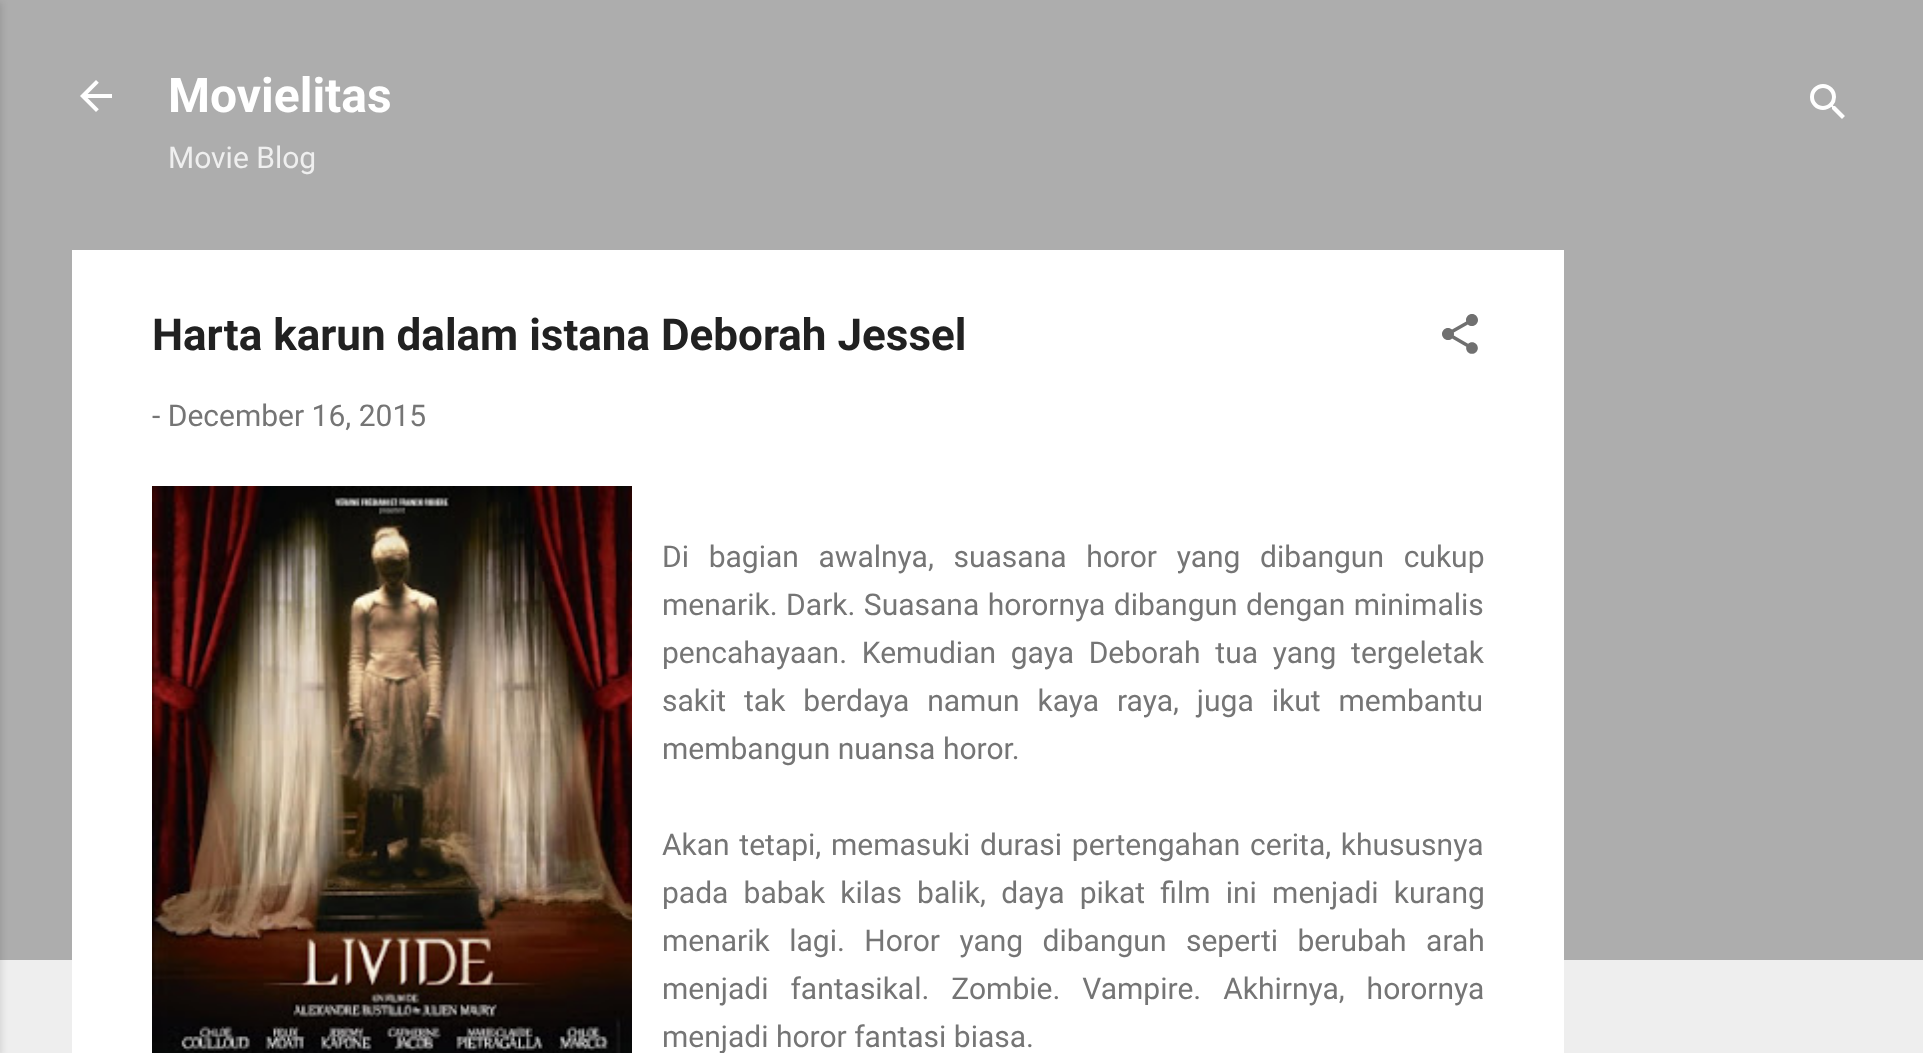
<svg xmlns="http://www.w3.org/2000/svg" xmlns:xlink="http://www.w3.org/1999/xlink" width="1923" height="1053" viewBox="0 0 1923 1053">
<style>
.cls-1{font:bold 48px Roboto;fill:#ffffff}
.cls-2{font:30px Roboto;fill:#efefef}
.cls-3{font:bold 44px Roboto;fill:#212121}
.cls-4{font:30px Roboto;fill:#757575}
</style>
<rect width="100%" height="100%" fill="#eeeeee"/>
<rect fill="#adadad" x="0" y="0" width="1923" height="960"/>
<rect fill="#000000" fill-opacity="0.1" filter="blur(3px)" x="-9" y="2" width="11" height="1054"/>
<image xlink:href="image0.png" x="80" y="80" width="32" height="32"/>
<image xlink:href="image1.png" x="1810" y="84" width="35" height="35"/>
<rect fill="#ffffff" x="72" y="250" width="1492" height="803"/>
<image xlink:href="image2.png" x="1442" y="314" width="36" height="40"/>
<image xlink:href="image3.png" x="152" y="486" width="480" height="567"/>
<text class="cls-1" x="168" y="112">Movielitas</text>
<text class="cls-2" x="168" y="168">Movie Blog</text>
<text class="cls-3" x="152" y="350">Harta karun dalam istana Deborah Jessel</text>
<text class="cls-4" x="152" y="426">- December 16, 2015</text>
<text class="cls-4"><tspan x="662" y="567" word-spacing="12.25">Di bagian awalnya, suasana horor yang dibangun cukup</tspan><tspan x="662" y="615" word-spacing="1">menarik. Dark. Suasana horornya dibangun dengan minimalis</tspan><tspan x="662" y="663" word-spacing="7.25">pencahayaan. Kemudian gaya Deborah tua yang tergeletak</tspan><tspan x="662" y="711" word-spacing="10.5">sakit tak berdaya namun kaya raya, juga ikut membantu</tspan><tspan x="662" y="759">membangun nuansa horor.</tspan></text>
<text class="cls-4"><tspan x="662" y="855" word-spacing="2.25">Akan tetapi, memasuki durasi pertengahan cerita, khususnya</tspan><tspan x="662" y="903" word-spacing="7.75">pada babak kilas balik, daya pikat film ini menjadi kurang</tspan><tspan x="662" y="951" word-spacing="12">menarik lagi. Horor yang dibangun seperti berubah arah</tspan><tspan x="662" y="999" word-spacing="14.5">menjadi fantasikal. Zombie. Vampire. Akhirnya, horornya</tspan><tspan x="662" y="1047">menjadi horor fantasi biasa.</tspan></text>
</svg>
